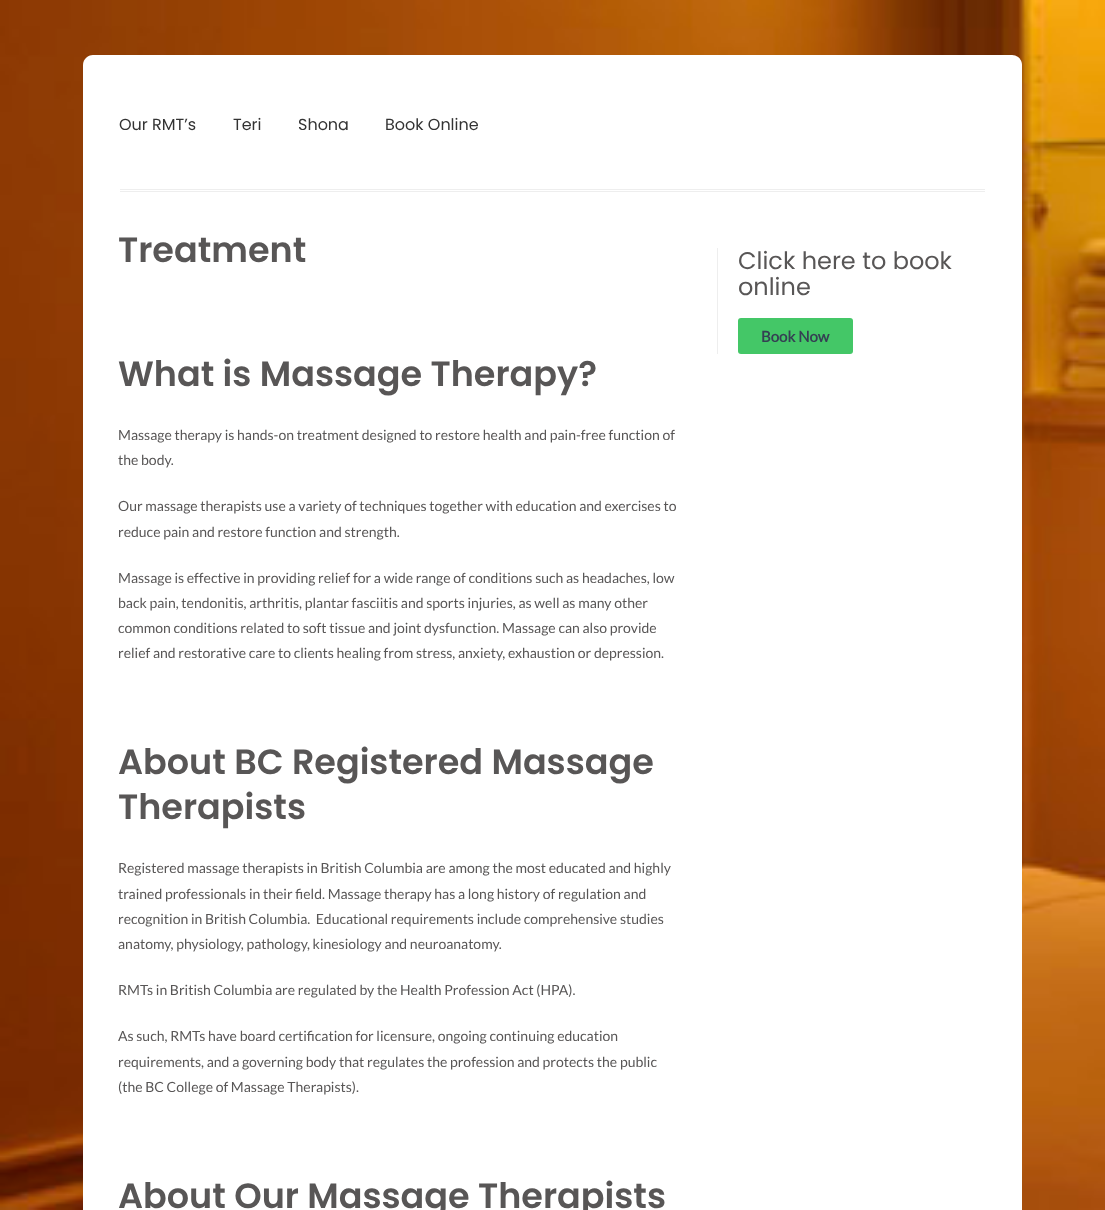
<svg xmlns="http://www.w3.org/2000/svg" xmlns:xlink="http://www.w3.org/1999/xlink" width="1105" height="1210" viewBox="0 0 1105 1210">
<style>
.cls-1{font:16px Poppins;fill:#333333}
.cls-2{font:600 35px Poppins;fill:#585656}
.cls-3{font:14px Lato;fill:#585656}
.cls-4{font:24px Poppins;fill:#585656}
.cls-5{font:bold 15px Lato;fill:#354053}
</style>
<rect width="100%" height="100%" fill="#ffffff"/>
<image xlink:href="image0.png" x="0" y="0" width="1105" height="1210"/>
<path fill="#ffffff" d="M93 55H1012C1017.5 55 1022 59.5 1022 65V192H83V65C83 59.5 87.5 55 93 55Z"/>
<rect fill="#eeeeee" x="120" y="189" width="865" height="1"/>
<rect fill="#eeeeee" x="120" y="191" width="865" height="1"/>
<rect fill="#ffffff" x="83" y="192" width="939" height="1018"/>
<rect fill="#eeeeee" x="717" y="248" width="1" height="106"/>
<rect fill="#44c767" x="738" y="318" width="115" height="36" rx="3"/>
<text class="cls-1" x="119" y="130">Our RMT’s</text>
<text class="cls-1" x="233" y="130">Teri</text>
<text class="cls-1" x="298" y="130">Shona</text>
<text class="cls-1" x="385" y="130">Book Online</text>
<text class="cls-2" x="118" y="262">Treatment</text>
<text class="cls-2" x="118" y="386">What is Massage Therapy?</text>
<text class="cls-3"><tspan x="118" y="440">Massage therapy is hands-on treatment designed to restore health and pain-free function of</tspan><tspan x="118" y="465">the body.</tspan></text>
<text class="cls-3"><tspan x="118" y="511">Our massage therapists use a variety of techniques together with education and exercises to</tspan><tspan x="118" y="537">reduce pain and restore function and strength.</tspan></text>
<text class="cls-3"><tspan x="118" y="583">Massage is effective in providing relief for a wide range of conditions such as headaches, low</tspan><tspan x="118" y="608">back pain, tendonitis, arthritis, plantar fasciitis and sports injuries, as well as many other</tspan><tspan x="118" y="633">common conditions related to soft tissue and joint dysfunction. Massage can also provide</tspan><tspan x="118" y="658">relief and restorative care to clients healing from stress, anxiety, exhaustion or depression.</tspan></text>
<text class="cls-2"><tspan x="118" y="774">About BC Registered Massage</tspan><tspan x="118" y="819">Therapists</tspan></text>
<text class="cls-3" xml:space="preserve"><tspan x="118" y="873">Registered massage therapists in British Columbia are among the most educated and highly</tspan><tspan x="118" y="899">trained professionals in their field. Massage therapy has a long history of regulation and</tspan><tspan x="118" y="924">recognition in British Columbia.  Educational requirements include comprehensive studies</tspan><tspan x="118" y="949">anatomy, physiology, pathology, kinesiology and neuroanatomy.</tspan></text>
<text class="cls-3" x="118" y="995">RMTs in British Columbia are regulated by the Health Profession Act (HPA).</text>
<text class="cls-3"><tspan x="118" y="1041">As such, RMTs have board certification for licensure, ongoing continuing education</tspan><tspan x="118" y="1067">requirements, and a governing body that regulates the profession and protects the public</tspan><tspan x="118" y="1092">(the BC College of Massage Therapists).</tspan></text>
<text class="cls-2" x="118" y="1208">About Our Massage Therapists</text>
<text class="cls-4"><tspan x="738" y="269">Click here to book</tspan><tspan x="738" y="295">online</tspan></text>
<text class="cls-5" x="761" y="342">Book Now</text>
</svg>
